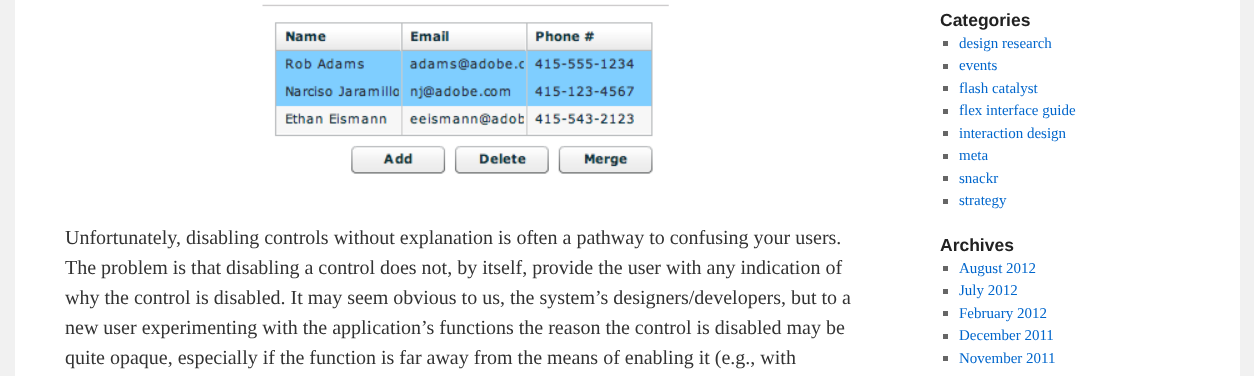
<svg xmlns="http://www.w3.org/2000/svg" xmlns:xlink="http://www.w3.org/1999/xlink" width="1254" height="376" viewBox="0 0 1254 376">
<style>
.cls-1{font:20px Liberation Serif;fill:#333333}
.cls-2{font:bold 17.5px Liberation Sans;fill:#222222}
.cls-3{font:15px Liberation Serif;fill:#0066cc}
</style>
<rect width="100%" height="100%" fill="#f1f1f1"/>
<rect fill="#ffffff" x="15" y="0" width="1225" height="376"/>
<image xlink:href="image0.png" x="262" y="4" width="407" height="170"/>
<rect fill="#666666" x="943" y="41" width="5" height="5"/>
<rect fill="#666666" x="943" y="64" width="5" height="5"/>
<rect fill="#666666" x="943" y="86" width="5" height="5"/>
<rect fill="#666666" x="943" y="109" width="5" height="5"/>
<rect fill="#666666" x="943" y="131" width="5" height="5"/>
<rect fill="#666666" x="943" y="154" width="5" height="5"/>
<rect fill="#666666" x="943" y="176" width="5" height="5"/>
<rect fill="#666666" x="943" y="199" width="5" height="5"/>
<rect fill="#666666" x="943" y="266" width="5" height="5"/>
<rect fill="#666666" x="943" y="289" width="5" height="5"/>
<rect fill="#666666" x="943" y="311" width="5" height="5"/>
<rect fill="#666666" x="943" y="334" width="5" height="5"/>
<rect fill="#666666" x="943" y="356" width="5" height="5"/>
<text class="cls-1"><tspan x="65" y="244">Unfortunately, disabling controls without explanation is often a pathway to confusing your users.</tspan><tspan x="65" y="274">The problem is that disabling a control does not, by itself, provide the user with any indication of</tspan><tspan x="65" y="304">why the control is disabled. It may seem obvious to us, the system’s designers/developers, but to a</tspan><tspan x="65" y="334">new user experimenting with the application’s functions the reason the control is disabled may be</tspan><tspan x="65" y="364">quite opaque, especially if the function is far away from the means of enabling it (e.g., with</tspan></text>
<text class="cls-2" x="940" y="26">Categories</text>
<text class="cls-3"><tspan x="959" y="48">design research</tspan><tspan x="959" y="70">events</tspan><tspan x="959" y="93">flash catalyst</tspan><tspan x="959" y="115">flex interface guide</tspan><tspan x="959" y="138">interaction design</tspan><tspan x="959" y="160">meta</tspan><tspan x="959" y="183">snackr</tspan><tspan x="959" y="205">strategy</tspan></text>
<text class="cls-2" x="940" y="251">Archives</text>
<text class="cls-3"><tspan x="959" y="273">August 2012</tspan><tspan x="959" y="295">July 2012</tspan><tspan x="959" y="318">February 2012</tspan><tspan x="959" y="340">December 2011</tspan><tspan x="959" y="363">November 2011</tspan></text>
</svg>
